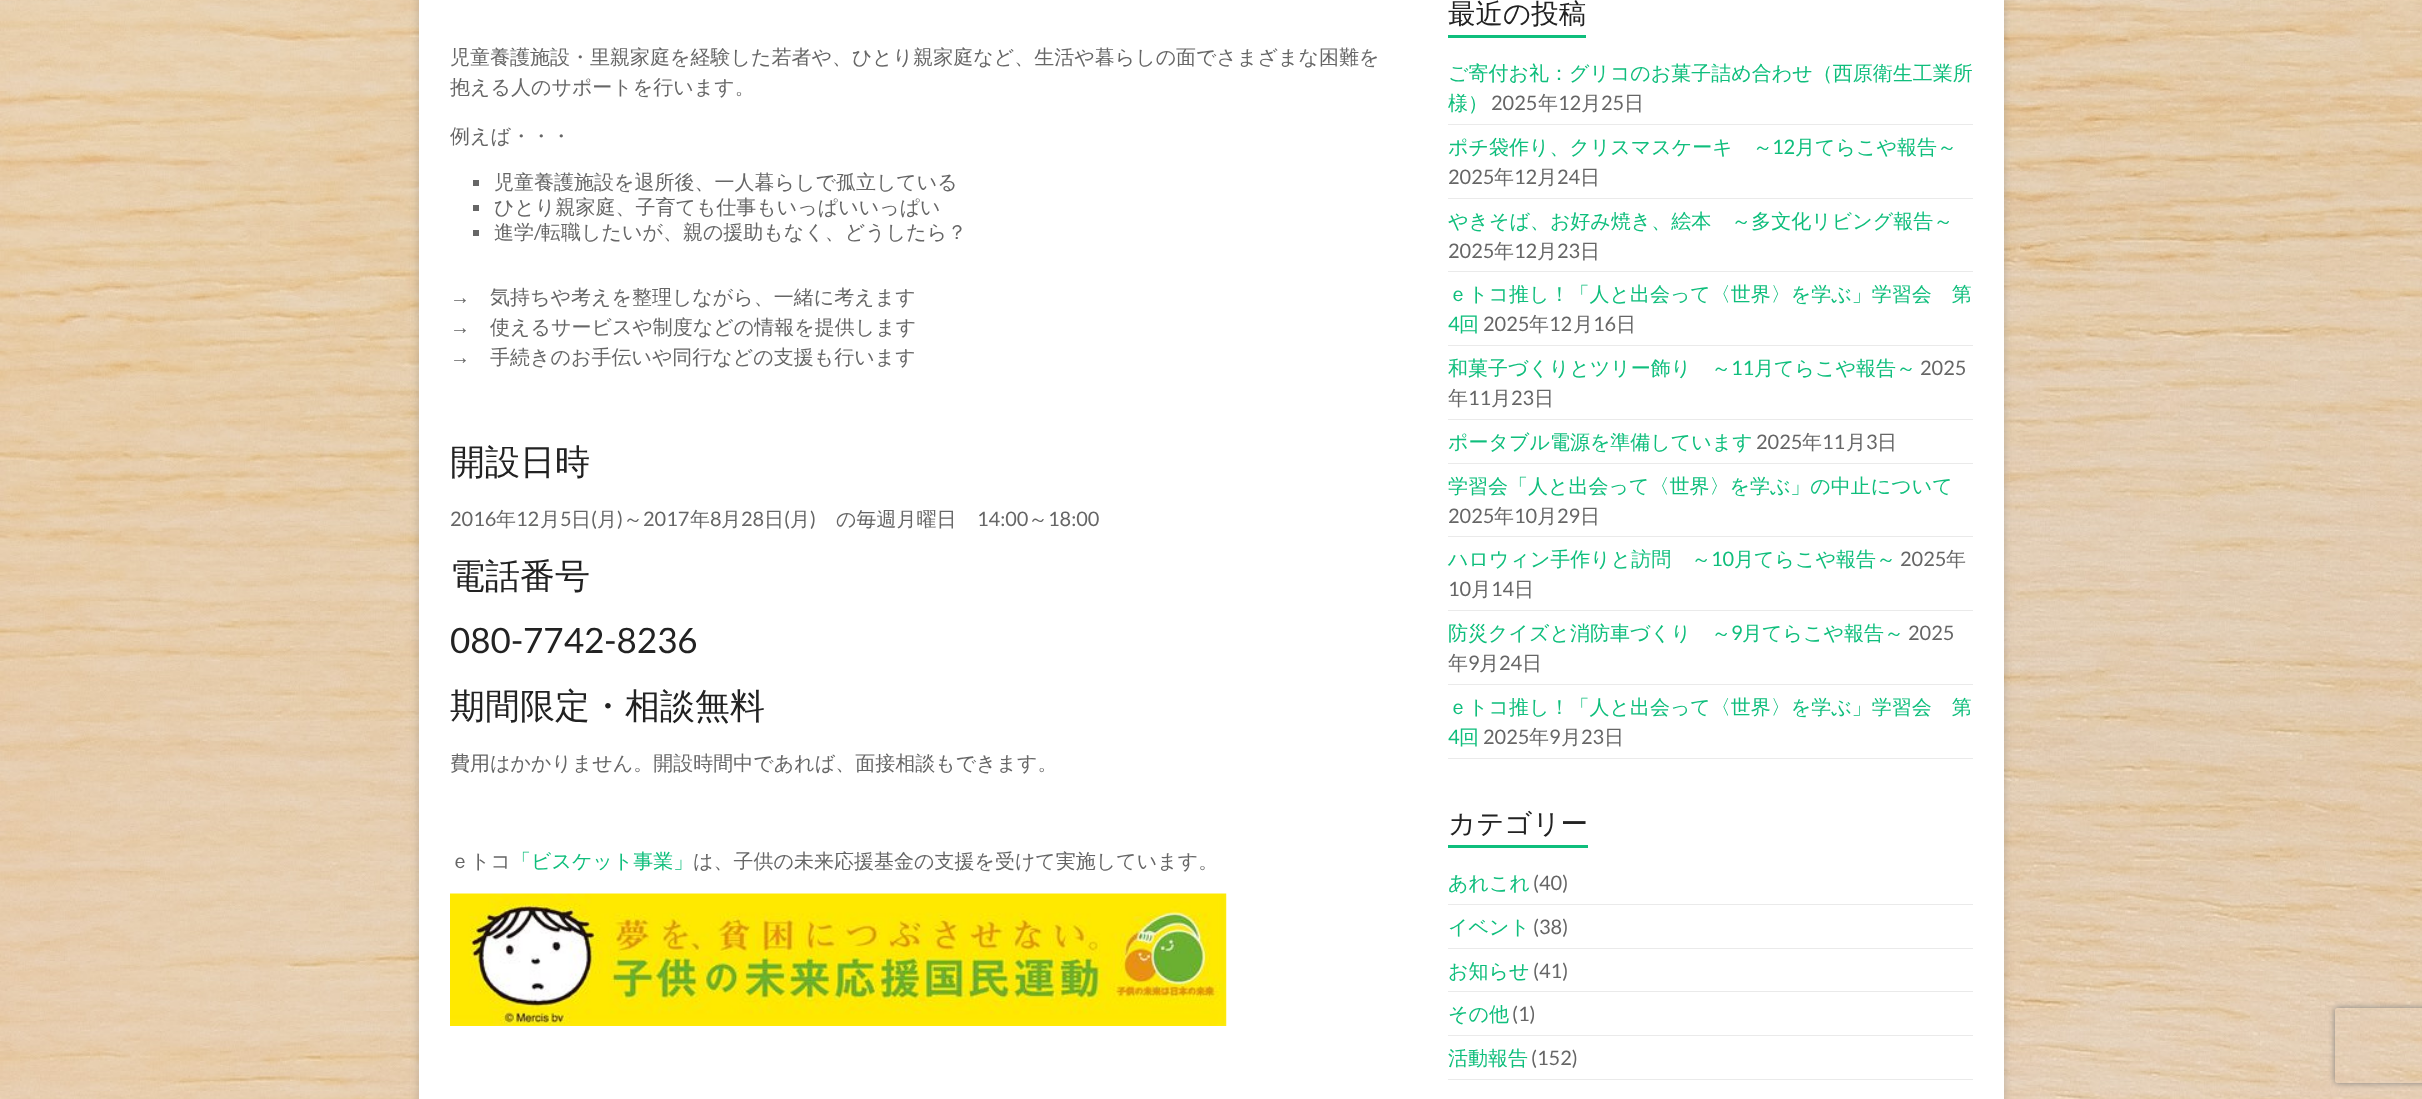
<svg xmlns="http://www.w3.org/2000/svg" xmlns:xlink="http://www.w3.org/1999/xlink" width="2422" height="1099" viewBox="0 0 2422 1099">
<style>
.cls-1{font:500 20px WenQuanYi Zen Hei;fill:#666666}
.cls-2{font:20px Lato;fill:#666666}
.cls-3{font:20px Liberation Sans;fill:#666666}
.cls-4{font:500 35px WenQuanYi Zen Hei;fill:#222222}
.cls-5{font:35px Lato;fill:#222222}
.cls-6{font:500 20px WenQuanYi Zen Hei;fill:#0fbe7c}
.cls-7{font:500 27.5px WenQuanYi Zen Hei;fill:#222222}
.cls-8{font:20px Lato;fill:#0fbe7c}
</style>
<defs>
<clipPath id="clip1"><path d="M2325 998H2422V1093H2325ZM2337.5 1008H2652.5C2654 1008 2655 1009 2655 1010.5V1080.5C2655 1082 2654 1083 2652.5 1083H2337.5C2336 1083 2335 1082 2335 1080.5V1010.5C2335 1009 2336 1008 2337.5 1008Z" clip-rule="evenodd"/></clipPath>
</defs>
<rect width="100%" height="100%" fill="#ffffff"/>
<image xlink:href="image0.png" x="0" y="0" width="2422" height="1099"/>
<rect fill="#646464" fill-opacity="0.3" filter="blur(4px)" x="419" y="-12" width="1585" height="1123"/>
<rect fill="#ffffff" x="419" y="0" width="1585" height="1099"/>
<rect fill="#666666" x="473" y="180" width="6" height="6"/>
<rect fill="#666666" x="473" y="205" width="6" height="6"/>
<rect fill="#666666" x="473" y="230" width="6" height="6"/>
<image xlink:href="image1.png" x="450" y="893" width="777" height="133"/>
<rect fill="#0fbe7c" x="1448" y="35" width="138" height="3"/>
<rect fill="#eaeaea" x="1448" y="124" width="525" height="1"/>
<rect fill="#eaeaea" x="1448" y="198" width="525" height="1"/>
<rect fill="#eaeaea" x="1448" y="271" width="525" height="1"/>
<rect fill="#eaeaea" x="1448" y="345" width="525" height="1"/>
<rect fill="#eaeaea" x="1448" y="419" width="525" height="1"/>
<rect fill="#eaeaea" x="1448" y="463" width="525" height="1"/>
<rect fill="#eaeaea" x="1448" y="536" width="525" height="1"/>
<rect fill="#eaeaea" x="1448" y="610" width="525" height="1"/>
<rect fill="#eaeaea" x="1448" y="684" width="525" height="1"/>
<rect fill="#eaeaea" x="1448" y="758" width="525" height="1"/>
<rect fill="#0fbe7c" x="1448" y="845" width="140" height="3"/>
<rect fill="#eaeaea" x="1448" y="904" width="525" height="1"/>
<rect fill="#eaeaea" x="1448" y="948" width="525" height="1"/>
<rect fill="#eaeaea" x="1448" y="991" width="525" height="1"/>
<rect fill="#eaeaea" x="1448" y="1035" width="525" height="1"/>
<rect fill="#eaeaea" x="1448" y="1079" width="525" height="1"/>
<g clip-path="url(#clip1)">
<rect fill="#808080" filter="blur(3px)" x="2335" y="1008" width="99" height="75" rx="2.5"/>
</g>
<text class="cls-1"><tspan x="450" y="64">児童養護施設・里親家庭を経験した若者や、ひとり親家庭など、生活や暮らしの面でさまざまな困難を</tspan><tspan x="450" y="94">抱える人のサポートを行います。</tspan></text>
<text class="cls-1" x="450" y="143">例えば・・・</text>
<text class="cls-1"><tspan x="494" y="189">児童養護施設を退所後、一人暮らしで孤立している</tspan><tspan x="494" y="214">ひとり親家庭、子育ても仕事もいっぱいいっぱい</tspan><tspan x="494" y="239">進学</tspan></text>
<text class="cls-2" x="534" y="239">/</text>
<text class="cls-1" x="541" y="239">転職したいが、親の援助もなく、どうしたら？</text>
<text class="cls-3" x="450" y="304">→</text>
<text class="cls-1" x="490" y="304">気持ちや考えを整理しながら、一緒に考えます</text>
<text class="cls-3" x="450" y="334">→</text>
<text class="cls-1" x="490" y="334">使えるサービスや制度などの情報を提供します</text>
<text class="cls-3" x="450" y="364">→</text>
<text class="cls-1" x="490" y="364">手続きのお手伝いや同行などの支援も行います</text>
<text class="cls-4" x="450" y="474">開設日時</text>
<text class="cls-1" x="496" y="526">年</text>
<text class="cls-1" x="540" y="526">月</text>
<text class="cls-1" x="571" y="526">日 月 ～</text>
<text class="cls-1" x="690" y="526">年</text>
<text class="cls-1" x="836" y="526">の毎週月曜日</text>
<text class="cls-2" x="591" y="526">(</text>
<text class="cls-2" x="617" y="526">)</text>
<text class="cls-1" x="721" y="526">月</text>
<text class="cls-1" x="764" y="526">日 月</text>
<text class="cls-2" x="450" y="526">2016</text>
<text class="cls-2" x="516" y="526">12</text>
<text class="cls-2" x="560" y="526">5</text>
<text class="cls-2" x="643" y="526">2017</text>
<text class="cls-2" x="710" y="526">8</text>
<text class="cls-2" x="741" y="526">28</text>
<text class="cls-2" x="784" y="526">(</text>
<text class="cls-2" x="810" y="526">)</text>
<text class="cls-2" x="977" y="526">14:00</text>
<text class="cls-1" x="1028" y="526">～</text>
<text class="cls-2" x="1048" y="526">18:00</text>
<text class="cls-4" x="450" y="588">電話番号</text>
<text class="cls-5" x="450" y="653">080-7742-8236</text>
<text class="cls-4" x="450" y="718">期間限定・相談無料</text>
<text class="cls-1" x="450" y="770">費用はかかりません。開設時間中であれば、面接相談もできます。</text>
<text class="cls-1" x="450" y="868">ｅトコ</text>
<text class="cls-6" x="511" y="868">「ビスケット事業」</text>
<text class="cls-1" x="693" y="868">は、子供の未来応援基金の支援を受けて実施しています。</text>
<text class="cls-7" x="1448" y="23">最近の投稿</text>
<text class="cls-6"><tspan x="1448" y="80">ご寄付お礼：グリコのお菓子詰め合わせ（西原衛生工業所</tspan><tspan x="1448" y="110">様）</tspan></text>
<text class="cls-2" x="1491" y="110">2025</text>
<text class="cls-1" x="1538" y="110">年</text>
<text class="cls-2" x="1558" y="110">12</text>
<text class="cls-1" x="1581" y="110">月</text>
<text class="cls-2" x="1601" y="110">25</text>
<text class="cls-1" x="1624" y="110">日</text>
<text class="cls-6" x="1448" y="154">ポチ袋作り、クリスマスケーキ　～</text>
<text class="cls-8" x="1772" y="154">12</text>
<text class="cls-6" x="1795" y="154">月てらこや報告～</text>
<text class="cls-2" x="1448" y="184">2025</text>
<text class="cls-1" x="1494" y="184">年</text>
<text class="cls-2" x="1514" y="184">12</text>
<text class="cls-1" x="1537" y="184">月</text>
<text class="cls-2" x="1557" y="184">24</text>
<text class="cls-1" x="1580" y="184">日</text>
<text class="cls-6" x="1448" y="228">やきそば、お好み焼き、絵本　～多文化リビング報告～</text>
<text class="cls-2" x="1448" y="258">2025</text>
<text class="cls-1" x="1494" y="258">年</text>
<text class="cls-2" x="1514" y="258">12</text>
<text class="cls-1" x="1537" y="258">月</text>
<text class="cls-2" x="1557" y="258">23</text>
<text class="cls-1" x="1580" y="258">日</text>
<text class="cls-6" x="1448" y="301">ｅトコ推し！「人と出会って〈世界〉を学ぶ」学習会　第</text>
<text class="cls-8" x="1448" y="331">4</text>
<text class="cls-6" x="1459" y="331">回</text>
<text class="cls-2" x="1483" y="331">2025</text>
<text class="cls-1" x="1529" y="331">年</text>
<text class="cls-2" x="1549" y="331">12</text>
<text class="cls-1" x="1573" y="331">月</text>
<text class="cls-2" x="1593" y="331">16</text>
<text class="cls-1" x="1616" y="331">日</text>
<text class="cls-6" x="1448" y="375">和菓子づくりとツリー飾り　～</text>
<text class="cls-8" x="1731" y="375">11</text>
<text class="cls-6" x="1754" y="375">月てらこや報告～</text>
<text class="cls-2" x="1920" y="375">2025</text>
<text class="cls-1" x="1448" y="405">年</text>
<text class="cls-2" x="1468" y="405">11</text>
<text class="cls-1" x="1491" y="405">月</text>
<text class="cls-2" x="1511" y="405">23</text>
<text class="cls-1" x="1534" y="405">日</text>
<text class="cls-6" x="1448" y="449">ポータブル電源を準備しています</text>
<text class="cls-2" x="1756" y="449">2025</text>
<text class="cls-1" x="1802" y="449">年</text>
<text class="cls-2" x="1822" y="449">11</text>
<text class="cls-1" x="1846" y="449">月</text>
<text class="cls-2" x="1866" y="449">3</text>
<text class="cls-1" x="1877" y="449">日</text>
<text class="cls-6" x="1448" y="493">学習会「人と出会って〈世界〉を学ぶ」の中止について</text>
<text class="cls-2" x="1448" y="523">2025</text>
<text class="cls-1" x="1494" y="523">年</text>
<text class="cls-2" x="1514" y="523">10</text>
<text class="cls-1" x="1537" y="523">月</text>
<text class="cls-2" x="1557" y="523">29</text>
<text class="cls-1" x="1580" y="523">日</text>
<text class="cls-6" x="1448" y="566">ハロウィン手作りと訪問　～</text>
<text class="cls-8" x="1711" y="566">10</text>
<text class="cls-6" x="1734" y="566">月てらこや報告～</text>
<text class="cls-2" x="1900" y="566">2025</text>
<text class="cls-1" x="1946" y="566">年</text>
<text class="cls-2" x="1448" y="596">10</text>
<text class="cls-1" x="1471" y="596">月</text>
<text class="cls-2" x="1491" y="596">14</text>
<text class="cls-1" x="1514" y="596">日</text>
<text class="cls-6" x="1448" y="640">防災クイズと消防車づくり　～</text>
<text class="cls-8" x="1731" y="640">9</text>
<text class="cls-6" x="1742" y="640">月てらこや報告～</text>
<text class="cls-2" x="1908" y="640">2025</text>
<text class="cls-1" x="1448" y="670">年</text>
<text class="cls-2" x="1468" y="670">9</text>
<text class="cls-1" x="1479" y="670">月</text>
<text class="cls-2" x="1499" y="670">24</text>
<text class="cls-1" x="1522" y="670">日</text>
<text class="cls-6" x="1448" y="714">ｅトコ推し！「人と出会って〈世界〉を学ぶ」学習会　第</text>
<text class="cls-8" x="1448" y="744">4</text>
<text class="cls-6" x="1459" y="744">回</text>
<text class="cls-2" x="1483" y="744">2025</text>
<text class="cls-1" x="1529" y="744">年</text>
<text class="cls-2" x="1549" y="744">9</text>
<text class="cls-1" x="1561" y="744">月</text>
<text class="cls-2" x="1581" y="744">23</text>
<text class="cls-1" x="1604" y="744">日</text>
<text class="cls-7" x="1448" y="833">カテゴリー</text>
<text class="cls-6" x="1448" y="890">あれこれ</text>
<text class="cls-2" x="1533" y="890">(40)</text>
<text class="cls-6" x="1448" y="934">イベント</text>
<text class="cls-2" x="1533" y="934">(38)</text>
<text class="cls-6" x="1448" y="978">お知らせ</text>
<text class="cls-2" x="1533" y="978">(41)</text>
<text class="cls-6" x="1448" y="1021">その他</text>
<text class="cls-2" x="1512" y="1021">(1)</text>
<text class="cls-6" x="1448" y="1065">活動報告</text>
<text class="cls-2" x="1531" y="1065">(152)</text>
</svg>
